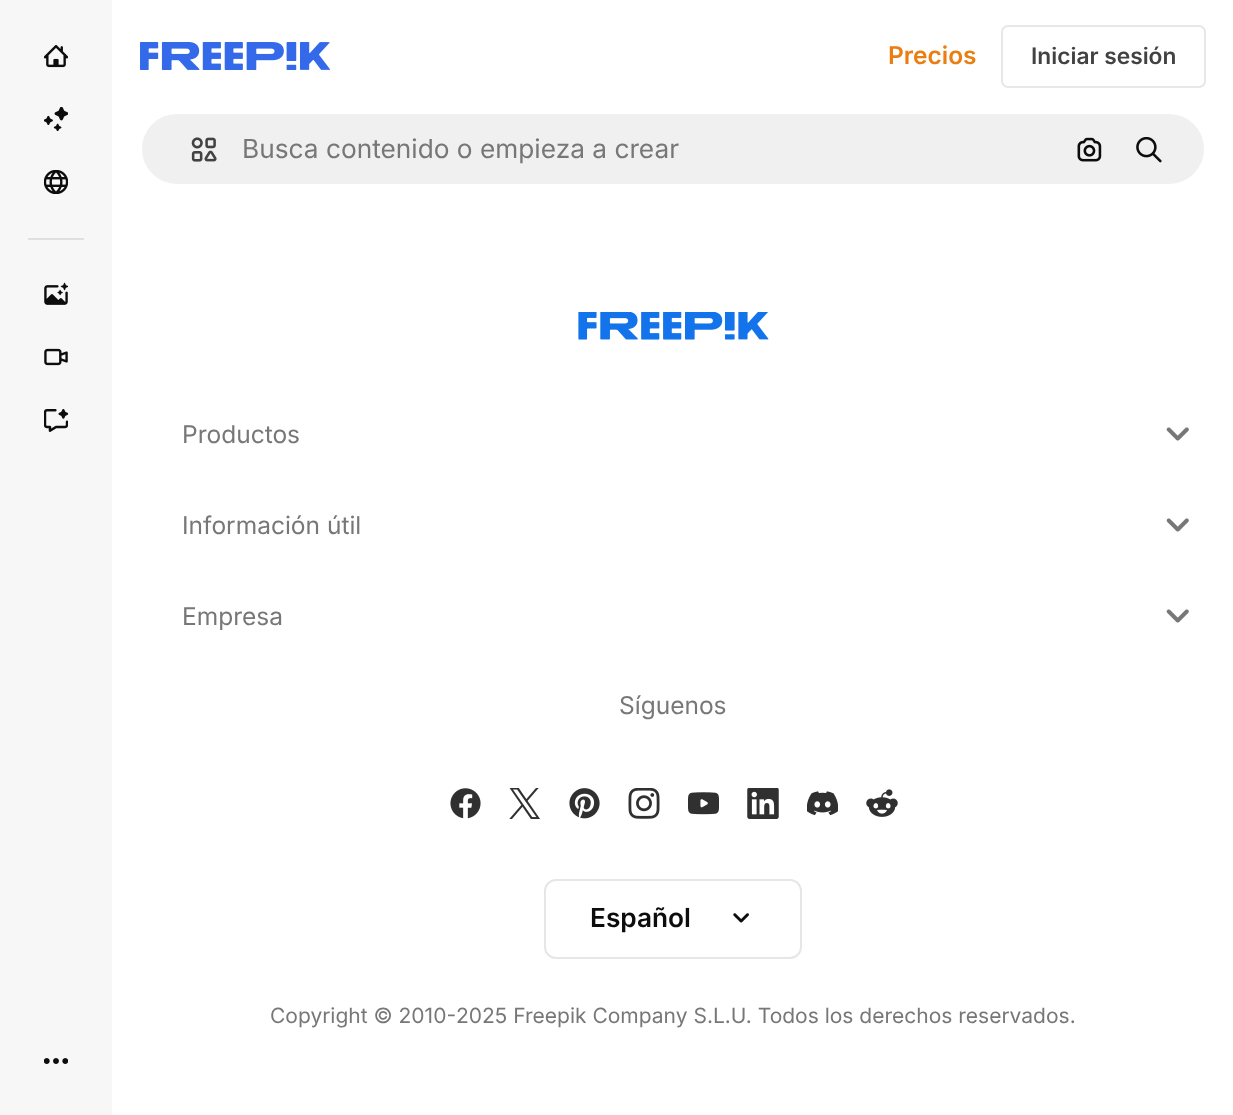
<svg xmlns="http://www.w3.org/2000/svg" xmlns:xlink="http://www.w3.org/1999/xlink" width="1233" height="1115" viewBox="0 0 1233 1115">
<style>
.cls-1{font:600 24.5px Inter;fill:#ea7e11}
.cls-2{font:600 22.75px Inter;fill:#424242}
.cls-3{font:26.25px Inter;fill:#777777}
.cls-4{font:24.5px Inter;fill:#777777}
.cls-5{font:600 26.25px Inter;fill:#0d0d0d}
.cls-6{font:21px Inter;fill:#777777}
</style>
<rect width="100%" height="100%" fill="#ffffff"/>
<rect fill="#f7f7f7" x="0" y="0" width="112" height="1115"/>
<image xlink:href="image0.png" x="44" y="45" width="24" height="23"/>
<image xlink:href="image1.png" x="44" y="107" width="24" height="24"/>
<image xlink:href="image2.png" x="44" y="170" width="24" height="24"/>
<rect fill="#e0e0e0" x="28" y="238" width="56" height="2"/>
<image xlink:href="image3.png" x="44" y="282" width="24" height="23"/>
<image xlink:href="image4.png" x="44" y="348" width="24" height="18"/>
<image xlink:href="image5.png" x="44" y="409" width="24" height="23"/>
<image xlink:href="image6.png" x="44" y="1058" width="24" height="6"/>
<image xlink:href="image7.png" x="140" y="42" width="190" height="28"/>
<rect fill="none" stroke="#e7e7e7" stroke-width="2" x="1002" y="26" width="203" height="61" rx="6"/>
<rect fill="#f0f0f0" stroke="#ffffff" stroke-width="2" x="141" y="113" width="1064" height="72" rx="36"/>
<image xlink:href="image8.png" x="191" y="137" width="26" height="25"/>
<image xlink:href="image9.png" x="1077" y="137" width="25" height="25"/>
<image xlink:href="image10.png" x="1136" y="137" width="26" height="26"/>
<image xlink:href="image11.png" x="578" y="312" width="191" height="28"/>
<image xlink:href="image12.png" x="1166" y="427" width="23" height="14"/>
<image xlink:href="image12.png" x="1166" y="518" width="23" height="14"/>
<image xlink:href="image12.png" x="1166" y="609" width="23" height="14"/>
<image xlink:href="image13.png" x="450" y="788" width="31" height="31"/>
<image xlink:href="image14.png" x="509" y="788" width="31" height="31"/>
<image xlink:href="image15.png" x="569" y="788" width="31" height="31"/>
<image xlink:href="image16.png" x="628" y="788" width="32" height="31"/>
<image xlink:href="image17.png" x="688" y="792" width="31" height="23"/>
<image xlink:href="image18.png" x="747" y="788" width="32" height="31"/>
<image xlink:href="image19.png" x="807" y="791" width="31" height="25"/>
<image xlink:href="image20.png" x="866" y="789" width="32" height="28"/>
<rect fill="none" stroke="#e6e6e6" stroke-width="2" x="545" y="880" width="256" height="78" rx="11"/>
<image xlink:href="image21.png" x="733" y="913" width="16" height="10"/>
<text class="cls-1" x="888" y="64">Precios</text>
<text class="cls-2" x="1031" y="64">Iniciar sesión</text>
<text class="cls-3" x="242" y="158">Busca contenido o empieza a crear</text>
<text class="cls-4" x="182" y="443">Productos</text>
<text class="cls-4" x="182" y="534">Información útil</text>
<text class="cls-4" x="182" y="625">Empresa</text>
<text class="cls-4" x="619" y="714">Síguenos</text>
<text class="cls-5" x="590" y="927">Español</text>
<text class="cls-6" x="270" y="1023">Copyright © 2010-</text>
<text class="cls-6" x="456" y="1023">2025 Freepik Company S.L.U. Todos los derechos reservados.</text>
</svg>
